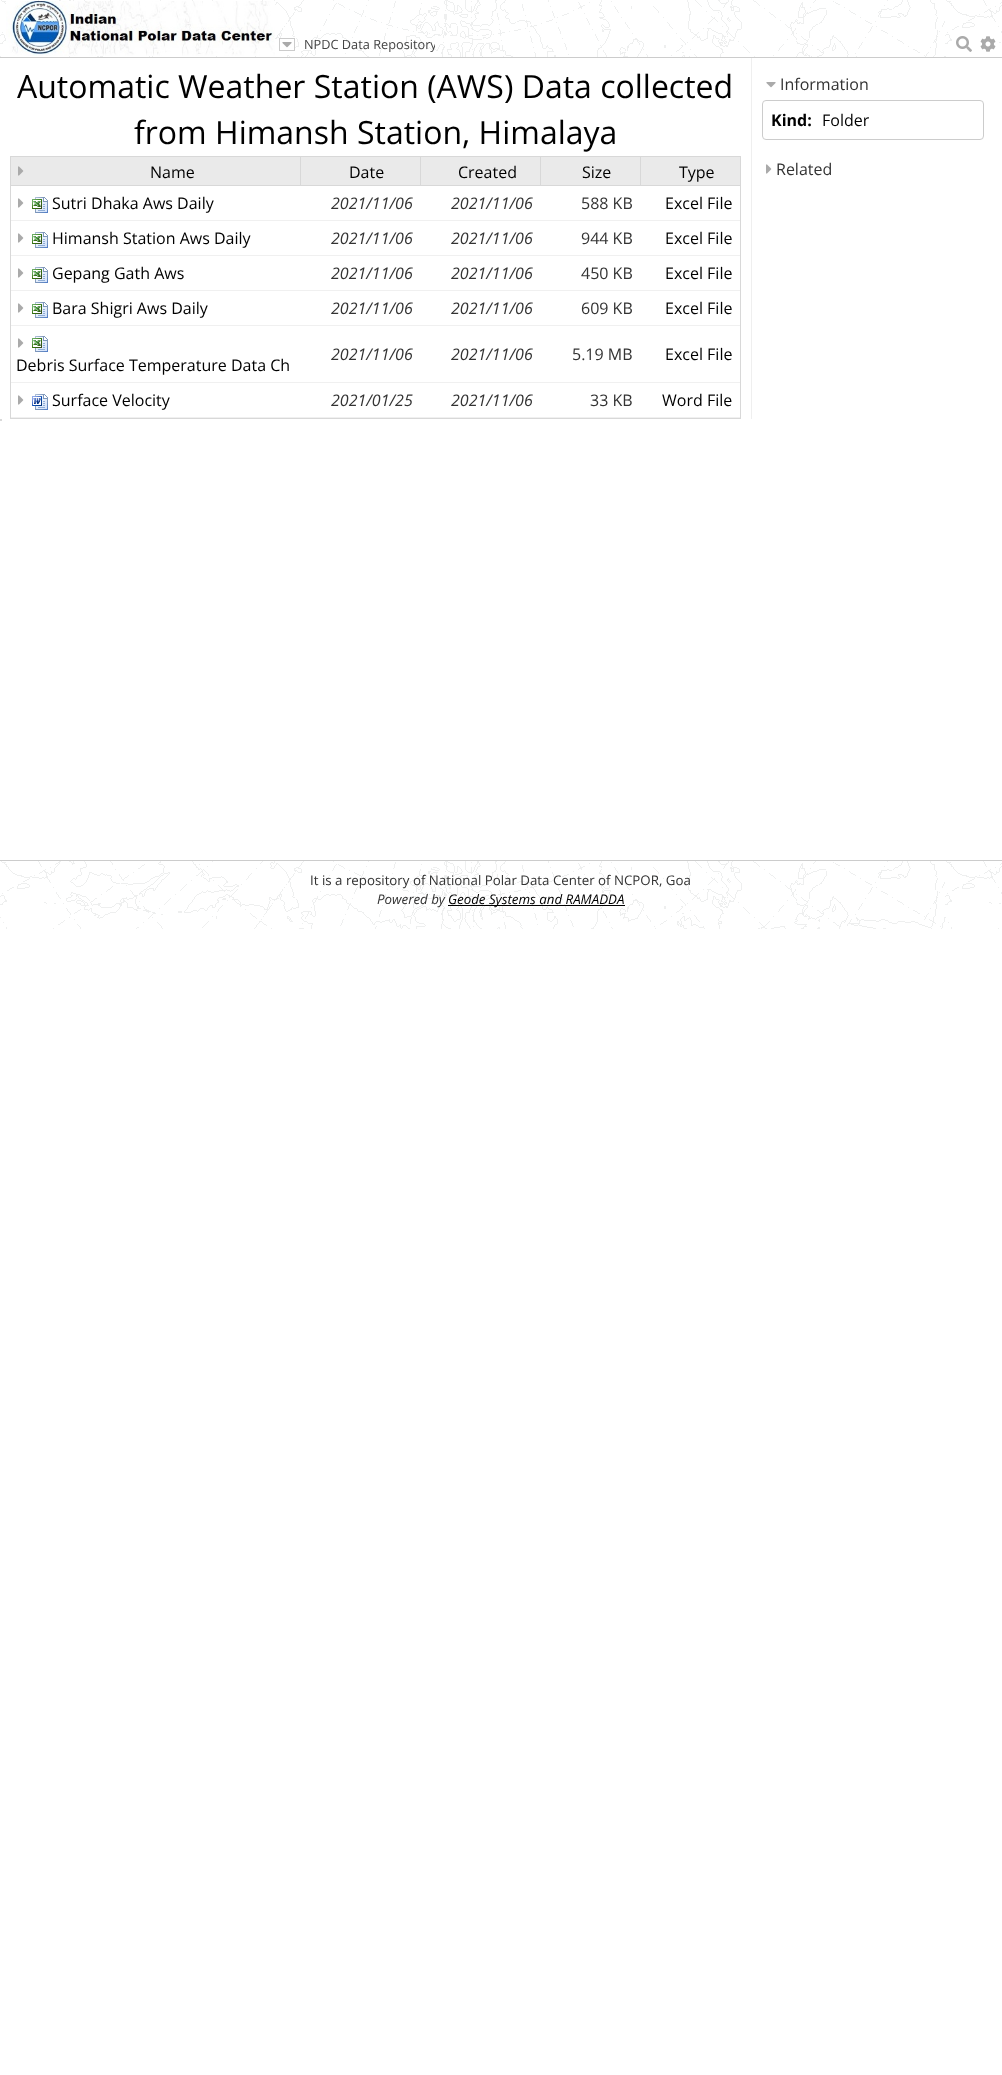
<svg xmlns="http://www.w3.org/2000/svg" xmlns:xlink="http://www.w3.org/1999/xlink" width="1002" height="2075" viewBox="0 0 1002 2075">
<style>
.cls-1{font:12.75px Open Sans;fill:#444444}
.cls-2{font:32px Open Sans;fill:#000000}
.cls-3{font:16px Open Sans;fill:#000000}
.cls-4{font:italic 16px Open Sans;fill:#333333}
.cls-5{font:16px Open Sans;fill:#333333}
.cls-6{font:bold 16px Open Sans;fill:#000000}
.cls-7{font:13.3px Open Sans;fill:#333333}
.cls-8{font:italic 13.3px Open Sans;fill:#333333}
.cls-9{font:italic 13.3px Open Sans;fill:#000000}
</style>
<defs>
<clipPath id="clip1"><rect x="304" y="34" width="131" height="21"/></clipPath>
</defs>
<rect width="100%" height="100%" fill="#ffffff"/>
<rect fill="#efefef" x="751" y="55" width="1" height="364"/>
<image xlink:href="image0.png" x="0" y="0" width="1002" height="57"/>
<rect fill="#cccccc" x="0" y="57" width="1002" height="1"/>
<image xlink:href="image1.png" x="6" y="1" width="269" height="55"/>
<rect fill="#ffffff" x="281" y="39" width="13" height="11"/>
<rect fill="none" stroke="#cccccc" x="279.5" y="38.5" width="15" height="12"/>
<image xlink:href="image2.png" x="282" y="42" width="10" height="6"/>
<image xlink:href="image3.png" x="956" y="36" width="16" height="16"/>
<image xlink:href="image4.png" x="980" y="36" width="16" height="16"/>
<rect fill="#eaeaea" x="11" y="157" width="729" height="28"/>
<rect fill="#d8d8d8" x="10" y="156" width="731" height="1"/>
<rect fill="#d8d8d8" x="740" y="156" width="1" height="263"/>
<rect fill="#d8d8d8" x="10" y="185" width="731" height="1"/>
<rect fill="#d8d8d8" x="10" y="156" width="1" height="30"/>
<image xlink:href="image5.png" x="18" y="166" width="6" height="10"/>
<rect fill="#d8d8d8" x="300" y="156" width="1" height="30"/>
<rect fill="#d8d8d8" x="420" y="156" width="1" height="30"/>
<rect fill="#d8d8d8" x="540" y="156" width="1" height="30"/>
<rect fill="#d8d8d8" x="640" y="156" width="1" height="30"/>
<rect fill="#d8d8d8" x="10" y="418" width="731" height="1"/>
<rect fill="#d8d8d8" x="10" y="186" width="1" height="233"/>
<rect fill="#f0f0f0" x="11" y="220" width="729" height="1"/>
<image xlink:href="image6.png" x="18" y="198" width="6" height="10"/>
<image xlink:href="image7.png" x="32" y="197" width="16" height="16"/>
<rect fill="#f0f0f0" x="11" y="255" width="729" height="1"/>
<image xlink:href="image6.png" x="18" y="233" width="6" height="10"/>
<image xlink:href="image7.png" x="32" y="232" width="16" height="16"/>
<rect fill="#f0f0f0" x="11" y="290" width="729" height="1"/>
<image xlink:href="image6.png" x="18" y="268" width="6" height="10"/>
<image xlink:href="image7.png" x="32" y="267" width="16" height="16"/>
<rect fill="#f0f0f0" x="11" y="325" width="729" height="1"/>
<image xlink:href="image6.png" x="18" y="303" width="6" height="10"/>
<image xlink:href="image7.png" x="32" y="302" width="16" height="16"/>
<rect fill="#f0f0f0" x="11" y="382" width="729" height="1"/>
<image xlink:href="image6.png" x="18" y="338" width="6" height="10"/>
<image xlink:href="image7.png" x="32" y="336" width="16" height="16"/>
<rect fill="#f0f0f0" x="11" y="417" width="729" height="1"/>
<image xlink:href="image6.png" x="18" y="395" width="6" height="10"/>
<image xlink:href="image8.png" x="32" y="394" width="16" height="16"/>
<image xlink:href="image2.png" x="766" y="82" width="10" height="6"/>
<rect fill="none" stroke="#cccccc" x="762.5" y="100.5" width="221" height="39" rx="3.5"/>
<image xlink:href="image6.png" x="766" y="164" width="6" height="10"/>
<circle fill="#cccccc" cx="1" cy="420" r="1"/>
<image xlink:href="image9.png" x="0" y="861" width="1002" height="68"/>
<rect fill="#cccccc" x="0" y="860" width="1002" height="1"/>
<rect fill="#000000" x="448" y="905" width="177" height="1"/>
<g clip-path="url(#clip1)">
<text class="cls-1" x="304" y="49">NPDC Data Repository</text>
</g>
<text class="cls-2" x="17" y="98">Automatic Weather Station (AWS) Data collected</text>
<text class="cls-2" x="134" y="144">from Himansh Station, Himalaya</text>
<text class="cls-3" x="150" y="178">Name</text>
<text class="cls-3" x="349" y="178">Date</text>
<text class="cls-3" x="458" y="178">Created</text>
<text class="cls-3" x="582" y="178">Size</text>
<text class="cls-3" x="679" y="178">Type</text>
<text class="cls-3" x="52" y="209">Sutri Dhaka Aws Daily</text>
<text class="cls-4" x="331" y="209">2021/11/06</text>
<text class="cls-4" x="451" y="209">2021/11/06</text>
<text class="cls-5" x="581" y="209">588 KB</text>
<text class="cls-3" x="665" y="209">Excel File</text>
<text class="cls-3" x="52" y="244">Himansh Station Aws Daily</text>
<text class="cls-4" x="331" y="244">2021/11/06</text>
<text class="cls-4" x="451" y="244">2021/11/06</text>
<text class="cls-5" x="581" y="244">944 KB</text>
<text class="cls-3" x="665" y="244">Excel File</text>
<text class="cls-3" x="52" y="279">Gepang Gath Aws</text>
<text class="cls-4" x="331" y="279">2021/11/06</text>
<text class="cls-4" x="451" y="279">2021/11/06</text>
<text class="cls-5" x="581" y="279">450 KB</text>
<text class="cls-3" x="665" y="279">Excel File</text>
<text class="cls-3" x="52" y="314">Bara Shigri Aws Daily</text>
<text class="cls-4" x="331" y="314">2021/11/06</text>
<text class="cls-4" x="451" y="314">2021/11/06</text>
<text class="cls-5" x="581" y="314">609 KB</text>
<text class="cls-3" x="665" y="314">Excel File</text>
<text class="cls-4" x="331" y="360">2021/11/06</text>
<text class="cls-4" x="451" y="360">2021/11/06</text>
<text class="cls-5" x="572" y="360">5.19 MB</text>
<text class="cls-3" x="665" y="360">Excel File</text>
<text class="cls-3" x="16" y="371">Debris Surface Temperature Data Ch</text>
<text class="cls-3" x="52" y="406">Surface Velocity</text>
<text class="cls-4" x="331" y="406">2021/01/25</text>
<text class="cls-4" x="451" y="406">2021/11/06</text>
<text class="cls-5" x="590" y="406">33 KB</text>
<text class="cls-3" x="662" y="406">Word File</text>
<text class="cls-5" x="780" y="90">Information</text>
<text class="cls-6" x="771" y="126">Kind:</text>
<text class="cls-3" x="822" y="126">Folder</text>
<text class="cls-5" x="776" y="175">Related</text>
<text class="cls-7" x="310" y="885">It is a repository of National Polar Data Center of NCPOR, Goa</text>
<text class="cls-8" x="377" y="904">Powered by</text>
<text class="cls-9" x="448" y="904">Geode Systems and RAMADDA</text>
</svg>
